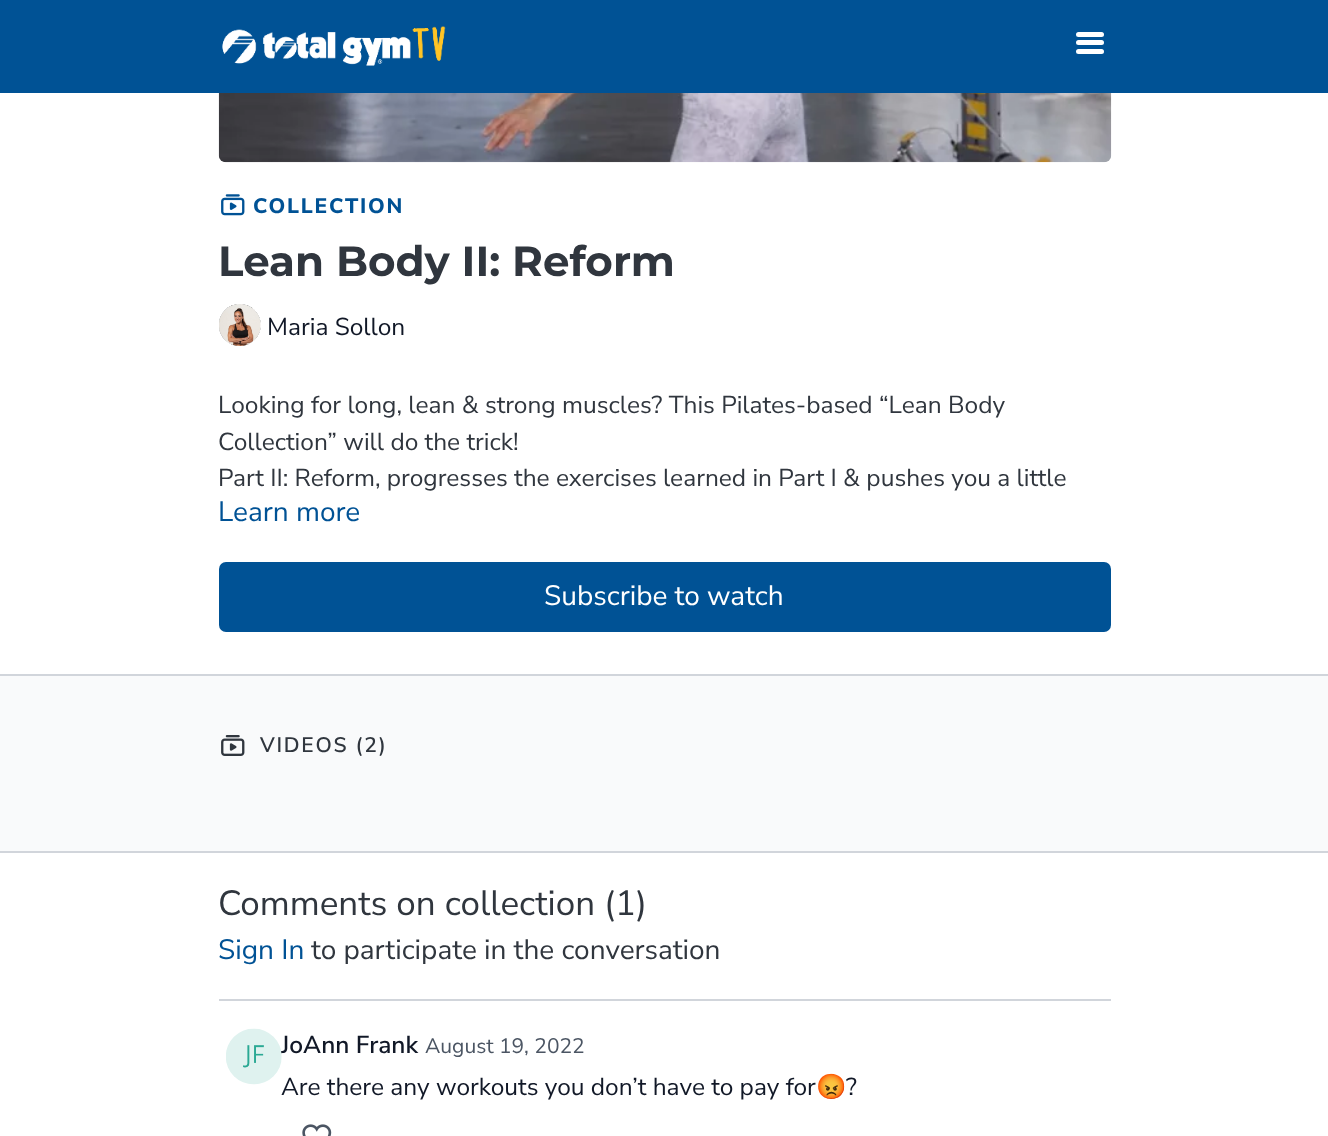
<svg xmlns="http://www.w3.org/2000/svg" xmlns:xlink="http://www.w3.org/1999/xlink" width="1328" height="1136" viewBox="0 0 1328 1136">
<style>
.cls-1{font:800 21px Nunito Sans;letter-spacing:1.75px;fill:#005295}
.cls-2{font:bold 42px Montserrat;fill:#30363e}
.cls-3{font:24.5px Nunito Sans;fill:#111827}
.cls-4{font:24.5px Nunito Sans;fill:#30363e}
.cls-5{font:28px Nunito Sans;fill:#005295}
.cls-6{font:28px Nunito Sans;fill:#ffffff}
.cls-7{font:600 21px Nunito Sans;letter-spacing:1.75px;fill:#30363e}
.cls-8{font:35px Nunito Sans;fill:#30363e}
.cls-9{font:28px Nunito Sans;fill:#30363e}
.cls-10{font:600 24.5px Nunito Sans;fill:#111827}
.cls-11{font:21px Nunito Sans;fill:#4b5563}
.cls-12{font:24.5px Noto Color Emoji;fill:#111827}
</style>
<rect width="100%" height="100%" fill="#ffffff"/>
<rect fill="#005295" x="0" y="0" width="1328" height="93"/>
<image xlink:href="image0.png" x="222" y="26" width="224" height="40"/>
<rect fill="#ffffff" x="1076" y="40" width="28" height="5" rx="2.5"/>
<rect fill="#ffffff" x="1076" y="32" width="28" height="5" rx="2.5"/>
<rect fill="#ffffff" x="1076" y="49" width="28" height="5" rx="2.5"/>
<image xlink:href="image1.png" x="218" y="93" width="894" height="70"/>
<image xlink:href="image2.png" x="221" y="194" width="24" height="22"/>
<image xlink:href="image3.png" x="219" y="304" width="42" height="42"/>
<rect fill="#005295" x="219" y="562" width="892" height="70" rx="7"/>
<rect fill="#f9fafb" x="0" y="676" width="1328" height="175"/>
<rect fill="#d1d5db" x="0" y="674" width="1328" height="2"/>
<rect fill="#d1d5db" x="0" y="851" width="1328" height="2"/>
<image xlink:href="image4.png" x="221" y="735" width="24" height="21"/>
<rect fill="#d1d5db" x="219" y="999" width="892" height="2"/>
<image xlink:href="image6.png" x="302" y="1124" width="30" height="12"/>
<text class="cls-1" x="253" y="213">COLLECTION</text>
<text class="cls-2" x="218" y="276">Lean Body II: Reform</text>
<text class="cls-3" x="267" y="335">Maria Sollon</text>
<text class="cls-4"><tspan x="218" y="413">Looking for long, lean &amp; strong muscles? This Pilates-based “Lean Body</tspan><tspan x="218" y="450">Collection” will do the trick!</tspan><tspan x="218" y="486">Part II: Reform, progresses the exercises learned in Part I &amp; pushes you a little</tspan></text>
<text class="cls-5" x="218" y="521">Learn more</text>
<text class="cls-6" x="544" y="605">Subscribe to watch</text>
<text class="cls-7" x="260" y="752">VIDEOS (2)</text>
<text class="cls-8" x="218" y="915">Comments on collection (1)</text>
<text class="cls-5" x="218" y="959">Sign In</text>
<text class="cls-9" x="311" y="959">to participate in the conversation</text>
<text class="cls-10" x="281" y="1053">JoAnn Frank</text>
<text class="cls-11" x="425" y="1053">August 19, 2022</text>
<text class="cls-3" x="281" y="1095">Are there any workouts you don’t have to pay for</text>
<image xlink:href="image5.png" x="226" y="1028" width="56" height="57"/>
<text class="cls-12" x="816" y="1095">😡</text>
<text class="cls-3" x="846" y="1095">?</text>
</svg>
